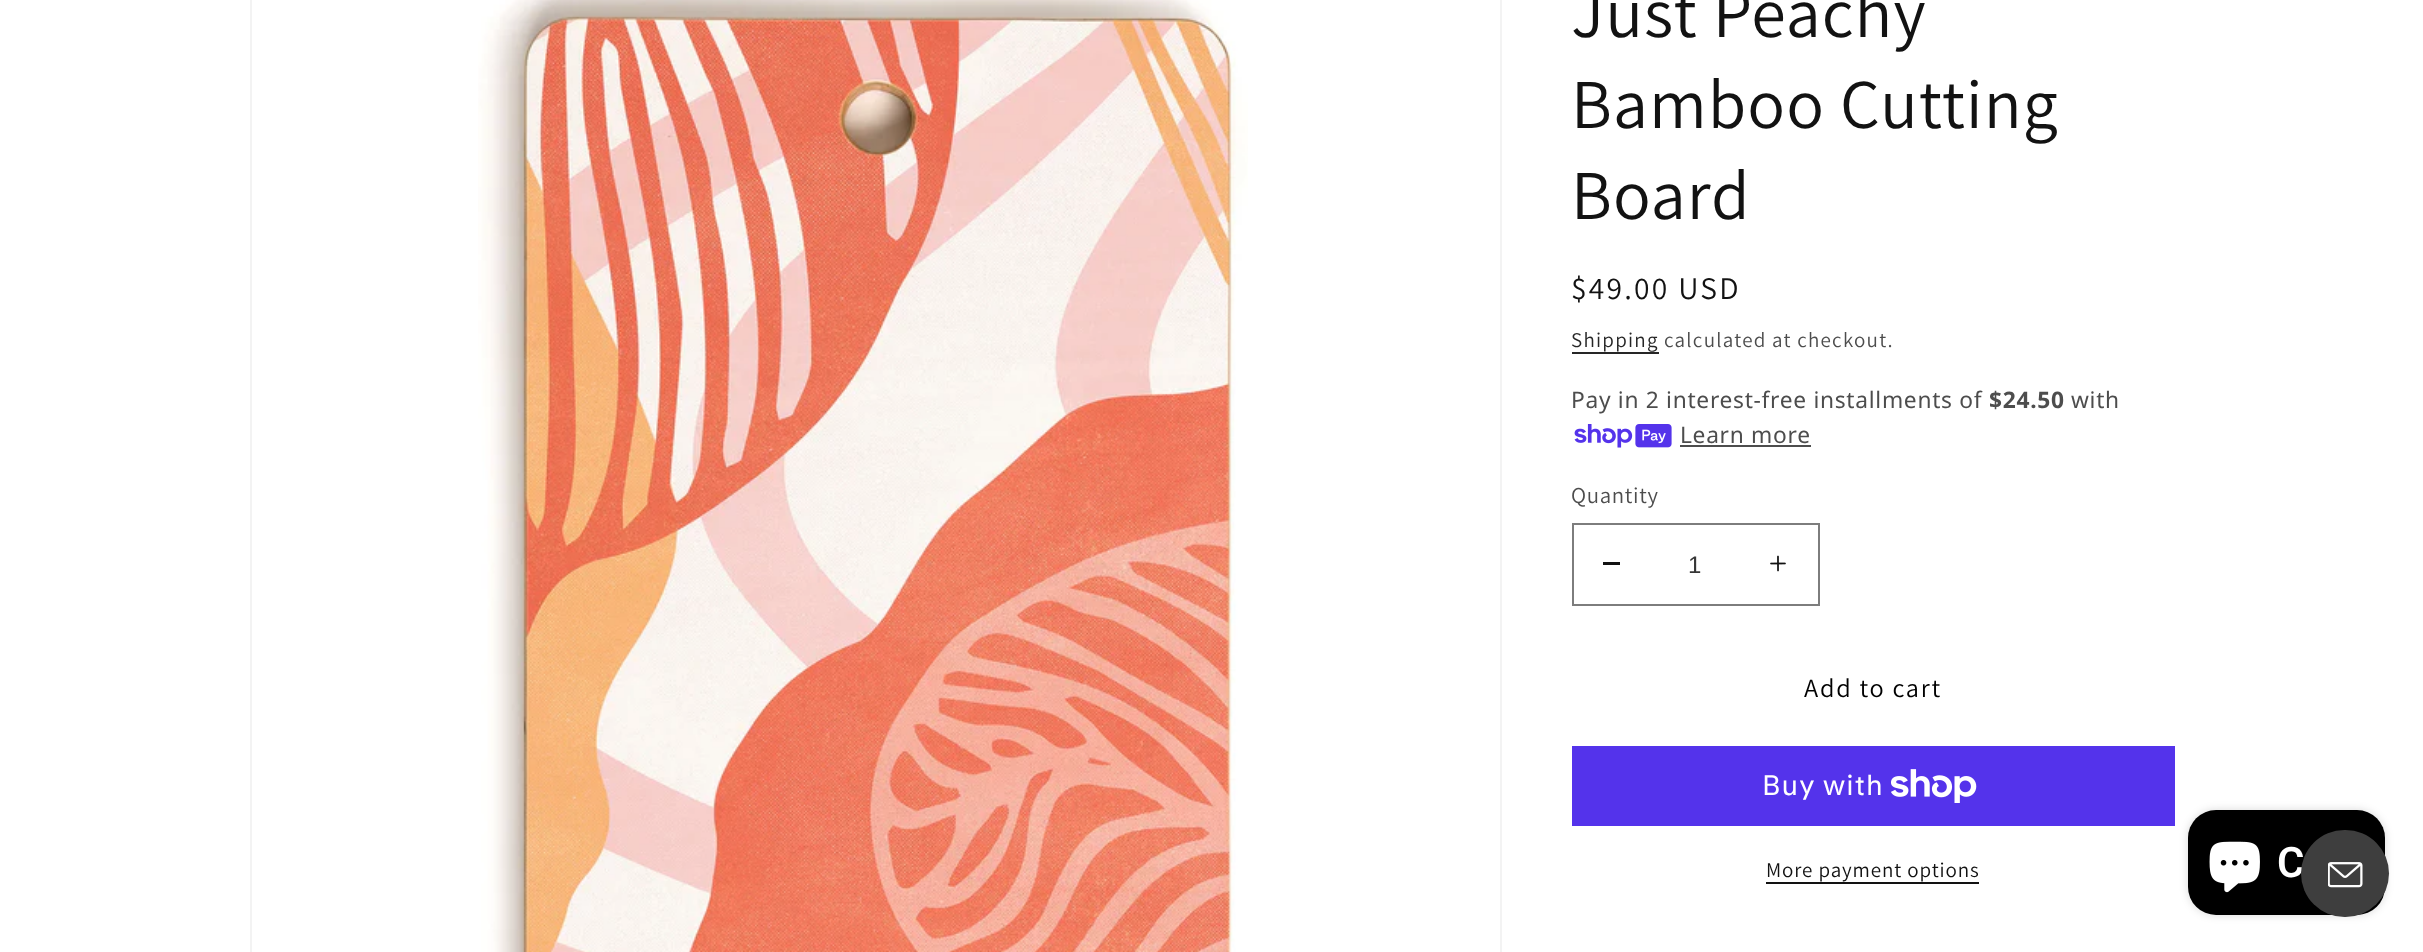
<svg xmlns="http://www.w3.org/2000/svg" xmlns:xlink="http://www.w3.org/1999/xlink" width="2423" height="952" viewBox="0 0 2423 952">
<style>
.cls-1{font:70px Assistant;letter-spacing:1px;fill:#121212}
.cls-2{font:31.5px Assistant;letter-spacing:2.25px;fill:#121212}
.cls-3{font:21px Assistant;letter-spacing:1.25px;fill:#262626}
.cls-4{font:21px Assistant;letter-spacing:1.25px;fill:#4d4d4d}
.cls-5{font:22.75px Noto Sans;letter-spacing:0.7px;fill:#4d4d4d}
.cls-6{font:bold 22.75px Noto Sans;letter-spacing:0.7px;fill:#4d4d4d}
.cls-7{font:22.75px Assistant;letter-spacing:0.7px;fill:#4d4d4d}
.cls-8{font:24px Liberation Sans;fill:#363636}
.cls-9{font:26.25px Assistant;letter-spacing:1.75px;fill:#000000}
.cls-10{font:28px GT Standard;letter-spacing:1px;fill:#ffffff}
.cls-11{font:21px Assistant;letter-spacing:0.9px;fill:#121212}
.cls-12{font:600 42px Roboto;fill:#ffffff}
</style>
<rect width="100%" height="100%" fill="#ffffff"/>
<rect fill="none" stroke="#f3f3f3" stroke-width="2" x="251" y="-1" width="1250" height="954"/>
<image xlink:href="image0.png" x="478" y="0" width="770" height="952"/>
<rect fill="#262626" x="1572" y="352" width="87" height="2"/>
<image xlink:href="image1.png" x="1574" y="424" width="98" height="24"/>
<rect fill="#4d4d4d" x="1680" y="445" width="131" height="2"/>
<rect fill="#121212" x="1603" y="562" width="17" height="3"/>
<image xlink:href="image2.png" x="1770" y="555" width="16" height="17"/>
<rect fill="none" stroke="#7d7d7d" stroke-width="2" x="1573" y="524" width="246" height="81"/>
<rect fill="#5433eb" x="1572" y="746" width="603" height="80"/>
<image xlink:href="image3.png" x="1891" y="769" width="86" height="34"/>
<rect fill="#121212" x="1766" y="882" width="213" height="2"/>
<rect fill="#000000" fill-opacity="0.15" filter="blur(4.5px)" x="2188" y="810" width="197" height="105" rx="28"/>
<rect fill="#000000" x="2188" y="810" width="197" height="105" rx="28"/>
<image xlink:href="image4.png" x="2209" y="841" width="51" height="52"/>
<text class="cls-1"><tspan x="1571" y="37">Just Peachy</tspan><tspan x="1571" y="128">Bamboo Cutting</tspan><tspan x="1571" y="219">Board</tspan></text>
<text class="cls-2" x="1571" y="299">$49.00 USD</text>
<text class="cls-3" x="1571" y="347">Shipping</text>
<text class="cls-4" x="1664" y="347">calculated at checkout.</text>
<text class="cls-5" x="1571" y="408">Pay in 2 interest-free installments of</text>
<text class="cls-6" x="1989" y="408">$24.50</text>
<text class="cls-5" x="2071" y="408">with</text>
<text class="cls-5" x="1680" y="443">Learn more</text>
<text class="cls-7" x="1571" y="503">Quantity</text>
<text class="cls-8" x="1688" y="573">1</text>
<text class="cls-9" x="1804" y="697">Add to cart</text>
<text class="cls-10" x="1762" y="795">Buy with</text>
<text class="cls-11" x="1766" y="877">More payment options</text>
<text class="cls-12" x="2277" y="877">C</text>
<rect fill="#3e3e3e" x="2301" y="830" width="88" height="87" rx="43.5"/>
<image xlink:href="image5.png" x="2328" y="862" width="35" height="26"/>
</svg>
